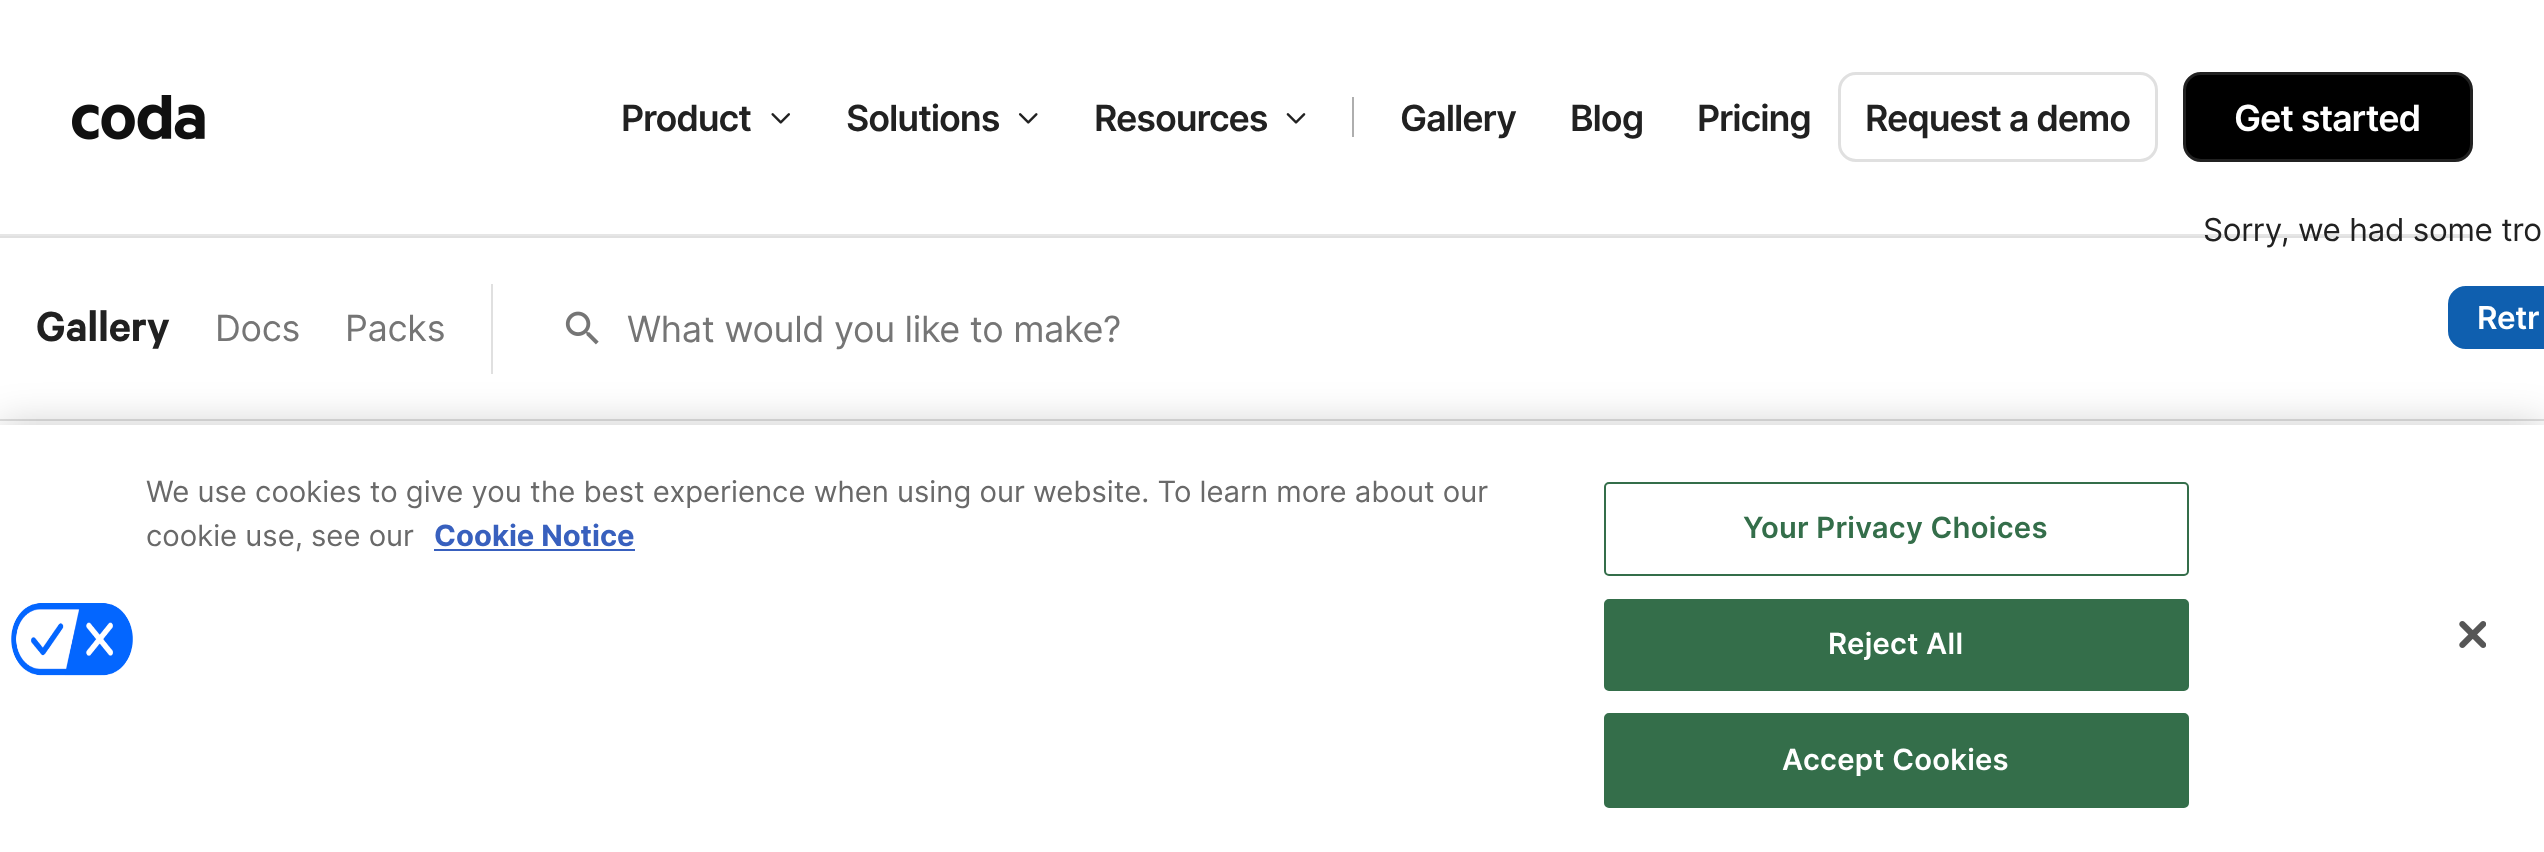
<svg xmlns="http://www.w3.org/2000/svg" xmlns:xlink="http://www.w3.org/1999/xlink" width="2544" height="852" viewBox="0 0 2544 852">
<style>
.cls-1{font:600 40.5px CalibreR;letter-spacing:-0.3px;fill:#212121}
.cls-2{font:36px Inter;letter-spacing:-0.3px;fill:#757575}
.cls-3{font:36px Inter;letter-spacing:-0.35px;fill:#757575}
.cls-4{font:600 36px Inter;letter-spacing:-1.1px;fill:#212121}
.cls-5{font:600 36px Inter;letter-spacing:-1.1px;fill:#ffffff}
.cls-6{font:31.5px Inter;letter-spacing:-0.3px;fill:#212121}
.cls-7{font:600 31.5px Inter;letter-spacing:-0.3px;fill:#ffffff}
.cls-8{font:29.25px Inter;fill:#696969}
.cls-9{font:bold 29.25px Inter;fill:#3860be}
.cls-10{font:600 29.25px Inter;letter-spacing:0.25px;fill:#346e4a}
.cls-11{font:600 29.25px Inter;letter-spacing:0.25px;fill:#ffffff}
</style>
<rect width="100%" height="100%" fill="#ffffff"/>
<rect fill="#e0e0e0" x="0" y="236" width="2473" height="2"/>
<rect fill="#e0e0e0" x="0" y="419" width="2544" height="2"/>
<rect fill="#e0e0e0" x="491" y="284" width="2" height="90"/>
<image xlink:href="image0.png" x="565" y="311" width="34" height="34"/>
<rect fill="#e6e6e6" x="0" y="234" width="2473" height="2"/>
<image xlink:href="image1.png" x="72" y="95" width="133" height="45"/>
<image xlink:href="image2.png" x="771" y="113" width="19" height="11"/>
<image xlink:href="image3.png" x="1018" y="113" width="20" height="11"/>
<image xlink:href="image4.png" x="1286" y="113" width="20" height="11"/>
<rect fill="#aeaeae" x="1352" y="97" width="2" height="40"/>
<rect fill="none" stroke="#e0e0e0" stroke-width="3" x="1839.5" y="73.5" width="317" height="87" rx="16.5"/>
<rect fill="#000000" stroke="#212121" stroke-width="3" x="2184.5" y="73.5" width="287" height="87" rx="16.5"/>
<rect fill="#0f5faf" stroke="#0f5faf" stroke-width="2" x="2449" y="287" width="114" height="61" rx="17"/>
<rect fill="#000000" fill-opacity="0.2" filter="blur(20px)" x="0" y="425" width="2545" height="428"/>
<rect fill="#ffffff" x="0" y="425" width="2544" height="427"/>
<rect fill="#3860be" x="434" y="549" width="201" height="2"/>
<image xlink:href="image5.png" x="11" y="603" width="122" height="73"/>
<rect fill="none" stroke="#346e4a" stroke-width="2" x="1605" y="483" width="583" height="92" rx="4"/>
<rect fill="#346e4a" stroke="#346e4a" stroke-width="2" x="1605" y="600" width="583" height="90" rx="4"/>
<rect fill="#346e4a" stroke="#346e4a" stroke-width="2" x="1605" y="714" width="583" height="93" rx="4"/>
<image xlink:href="image6.png" x="2459" y="621" width="27" height="27"/>
<text class="cls-1" x="36" y="341">Gallery</text>
<text class="cls-2" x="215" y="341">Docs</text>
<text class="cls-2" x="345" y="341">Packs</text>
<text class="cls-3" x="627" y="342">What would you like to make?</text>
<text class="cls-4" x="621" y="131">Product</text>
<text class="cls-4" x="846" y="131">Solutions</text>
<text class="cls-4" x="1094" y="131">Resources</text>
<text class="cls-4" x="1400" y="131">Gallery</text>
<text class="cls-4" x="1570" y="131">Blog</text>
<text class="cls-4" x="1697" y="131">Pricing</text>
<text class="cls-4" x="1865" y="131">Request a demo</text>
<text class="cls-5" x="2234" y="131">Get started</text>
<text class="cls-6" x="2203" y="241">Sorry, we had some tro</text>
<text class="cls-7" x="2477" y="329">Retr</text>
<text class="cls-8"><tspan x="146" y="502">We use cookies to give you the best experience when using our website. To learn more about our</tspan><tspan x="146" y="546">cookie use, see our</tspan></text>
<text class="cls-9" x="434" y="546">Cookie Notice</text>
<text class="cls-10" x="1743" y="538">Your Privacy Choices</text>
<text class="cls-11" x="1828" y="654">Reject All</text>
<text class="cls-11" x="1782" y="770">Accept Cookies</text>
</svg>
